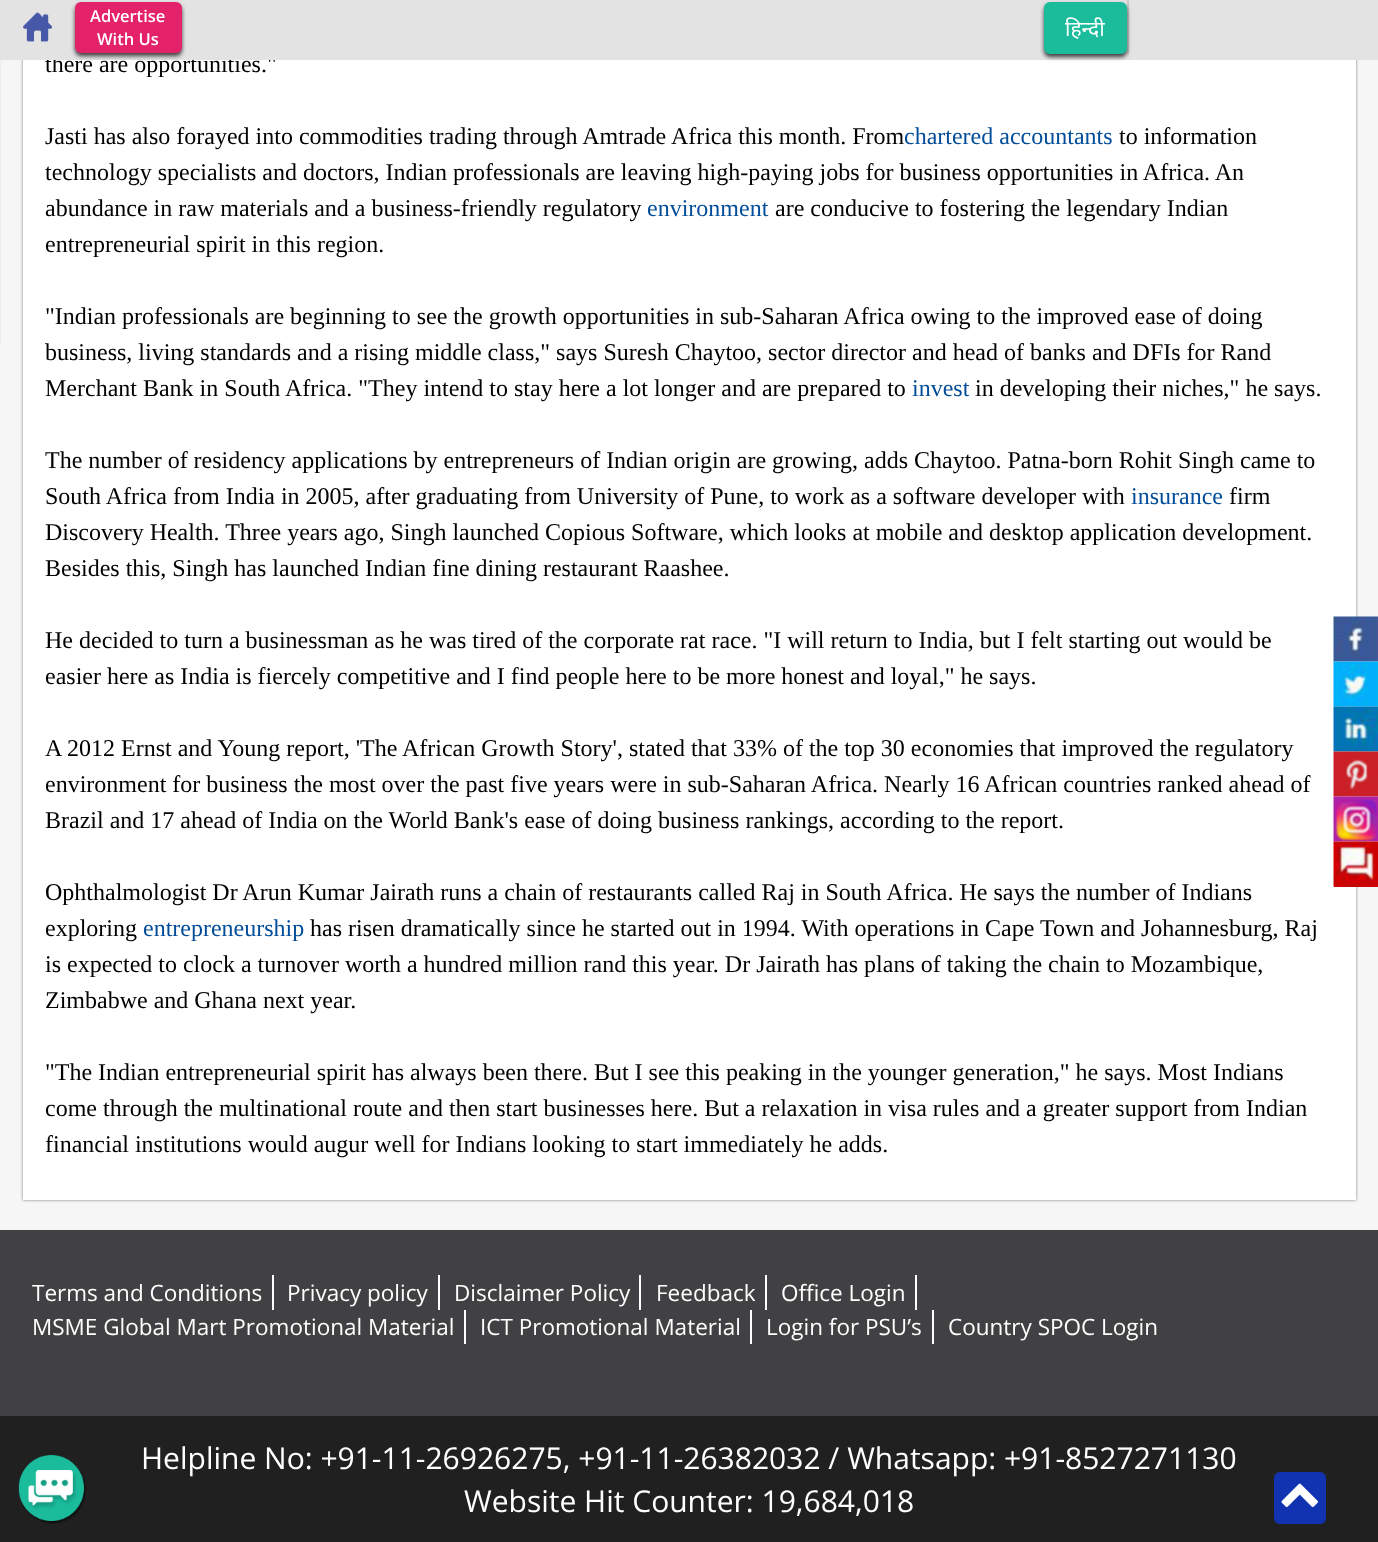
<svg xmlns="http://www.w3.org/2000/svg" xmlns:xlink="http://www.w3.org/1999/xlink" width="1378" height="1542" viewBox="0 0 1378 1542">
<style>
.cls-1{font:24px Liberation Serif;fill:#000000}
.cls-2{font:600 16.5px Open Sans;fill:#ffffff}
.cls-3{font:21px Noto Sans;fill:#ffffff}
.cls-4{font:24px Liberation Serif;fill:#024d99}
.cls-5{font:22.5px Open Sans;fill:#ffffff}
.cls-6{font:30px Open Sans;fill:#ffffff}
</style>
<rect width="100%" height="100%" fill="#f6f6f6"/>
<rect fill="#eeeeee" x="0" y="60" width="1" height="285"/>
<rect fill="#000000" fill-opacity="0.5" filter="blur(1.5px)" x="23" y="-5" width="1333" height="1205"/>
<rect fill="#ffffff" x="23" y="60" width="1333" height="1140"/>
<image xlink:href="image1.png" x="1333" y="616" width="45" height="46"/>
<image xlink:href="image2.png" x="1333" y="661" width="45" height="46"/>
<image xlink:href="image3.png" x="1333" y="706" width="45" height="46"/>
<image xlink:href="image4.png" x="1333" y="751" width="45" height="46"/>
<image xlink:href="image5.png" x="1333" y="796" width="45" height="46"/>
<rect fill="#cd0102" x="1334" y="886" width="44" height="1"/>
<image xlink:href="image6.png" x="1333" y="841" width="45" height="46"/>
<rect fill="#414042" x="0" y="1230" width="1378" height="186"/>
<rect fill="#ffffff" x="272" y="1275" width="2" height="35"/>
<rect fill="#ffffff" x="438" y="1275" width="2" height="35"/>
<rect fill="#ffffff" x="639" y="1275" width="2" height="35"/>
<rect fill="#ffffff" x="765" y="1275" width="2" height="35"/>
<rect fill="#ffffff" x="915" y="1275" width="2" height="35"/>
<rect fill="#ffffff" x="464" y="1310" width="2" height="34"/>
<rect fill="#ffffff" x="750" y="1310" width="2" height="34"/>
<rect fill="#ffffff" x="932" y="1310" width="2" height="34"/>
<rect fill="#202021" x="0" y="1416" width="1378" height="126"/>
<image xlink:href="image7.png" x="18" y="1455" width="68" height="69"/>
<rect fill="#1133b1" x="1274" y="1472" width="52" height="52" rx="6"/>
<image xlink:href="image8.png" x="1281" y="1483" width="37" height="24"/>
<text class="cls-1" x="45" y="72">there are opportunities."</text>
<rect fill="#e3e3e3" x="0" y="0" width="1378" height="60"/>
<rect fill="#3e3d3d" filter="blur(2px)" x="75" y="5" width="107" height="51" rx="6"/>
<rect fill="#e32269" x="75" y="2" width="107" height="51" rx="6"/>
<text class="cls-2" x="97" y="45">With Us</text>
<text class="cls-2" x="90" y="22">Advertise</text>
<image xlink:href="image0.png" x="23" y="12" width="29" height="30"/>
<rect fill="#cacaca" x="1127" y="0" width="2" height="54"/>
<rect fill="#3e3d3d" filter="blur(2px)" x="1044" y="5" width="83" height="52" rx="6"/>
<rect fill="#1abc9c" stroke="#1abc9c" stroke-width="2" x="1045" y="3" width="81" height="50" rx="5"/>
<text class="cls-3" x="1065" y="36">हिन्दी</text>
<text class="cls-1" x="45" y="144">Jasti has also forayed into commodities trading through Amtrade Africa this month. From</text>
<text class="cls-4" x="904" y="144">chartered accountants</text>
<text class="cls-1" x="1119" y="144">to information</text>
<text class="cls-1"><tspan x="45" y="180">technology specialists and doctors, Indian professionals are leaving high-paying jobs for business opportunities in Africa. An</tspan><tspan x="45" y="216">abundance in raw materials and a business-friendly regulatory</tspan></text>
<text class="cls-4" x="647" y="216">environment</text>
<text class="cls-1" x="775" y="216">are conducive to fostering the legendary Indian</text>
<text class="cls-1" x="45" y="252">entrepreneurial spirit in this region.</text>
<text class="cls-1"><tspan x="45" y="324">"Indian professionals are beginning to see the growth opportunities in sub-Saharan Africa owing to the improved ease of doing</tspan><tspan x="45" y="360">business, living standards and a rising middle class," says Suresh Chaytoo, sector director and head of banks and DFIs for Rand</tspan><tspan x="45" y="396">Merchant Bank in South Africa. "They intend to stay here a lot longer and are prepared to</tspan></text>
<text class="cls-4" x="912" y="396">invest</text>
<text class="cls-1" x="975" y="396">in developing their niches," he says.</text>
<text class="cls-1"><tspan x="45" y="468">The number of residency applications by entrepreneurs of Indian origin are growing, adds Chaytoo. Patna-born Rohit Singh came to</tspan><tspan x="45" y="504">South Africa from India in 2005, after graduating from University of Pune, to work as a software developer with</tspan></text>
<text class="cls-4" x="1131" y="504">insurance</text>
<text class="cls-1" x="1229" y="504">firm</text>
<text class="cls-1"><tspan x="45" y="540">Discovery Health. Three years ago, Singh launched Copious Software, which looks at mobile and desktop application development.</tspan><tspan x="45" y="576">Besides this, Singh has launched Indian fine dining restaurant Raashee.</tspan></text>
<text class="cls-1"><tspan x="45" y="648">He decided to turn a businessman as he was tired of the corporate rat race. "I will return to India, but I felt starting out would be</tspan><tspan x="45" y="684">easier here as India is fiercely competitive and I find people here to be more honest and loyal," he says.</tspan></text>
<text class="cls-1"><tspan x="45" y="756">A 2012 Ernst and Young report, 'The African Growth Story', stated that 33% of the top 30 economies that improved the regulatory</tspan><tspan x="45" y="792">environment for business the most over the past five years were in sub-Saharan Africa. Nearly 16 African countries ranked ahead of</tspan><tspan x="45" y="828">Brazil and 17 ahead of India on the World Bank's ease of doing business rankings, according to the report.</tspan></text>
<text class="cls-1"><tspan x="45" y="900">Ophthalmologist Dr Arun Kumar Jairath runs a chain of restaurants called Raj in South Africa. He says the number of Indians</tspan><tspan x="45" y="936">exploring</tspan></text>
<text class="cls-4" x="143" y="936">entrepreneurship</text>
<text class="cls-1" x="310" y="936">has risen dramatically since he started out in 1994. With operations in Cape Town and Johannesburg, Raj</text>
<text class="cls-1"><tspan x="45" y="972">is expected to clock a turnover worth a hundred million rand this year. Dr Jairath has plans of taking the chain to Mozambique,</tspan><tspan x="45" y="1008">Zimbabwe and Ghana next year.</tspan></text>
<text class="cls-1"><tspan x="45" y="1080">"The Indian entrepreneurial spirit has always been there. But I see this peaking in the younger generation," he says. Most Indians</tspan><tspan x="45" y="1116">come through the multinational route and then start businesses here. But a relaxation in visa rules and a greater support from Indian</tspan><tspan x="45" y="1152">financial institutions would augur well for Indians looking to start immediately he adds.</tspan></text>
<text class="cls-5" x="32" y="1301">Terms and Conditions</text>
<text class="cls-5" x="287" y="1301">Privacy policy</text>
<text class="cls-5" x="454" y="1301">Disclaimer Policy</text>
<text class="cls-5" x="656" y="1301">Feedback</text>
<text class="cls-5" x="781" y="1301">Office Login</text>
<text class="cls-5" x="32" y="1335">MSME Global Mart Promotional Material</text>
<text class="cls-5" x="480" y="1335">ICT Promotional Material</text>
<text class="cls-5" x="766" y="1335">Login for PSU’s</text>
<text class="cls-5" x="948" y="1335">Country SPOC Login</text>
<text class="cls-6" x="141" y="1469">Helpline No: +91-11-26926275, +91-11-26382032 / Whatsapp: +91-8527271130</text>
<text class="cls-6" x="464" y="1512">Website Hit Counter: 19,684,018</text>
</svg>
